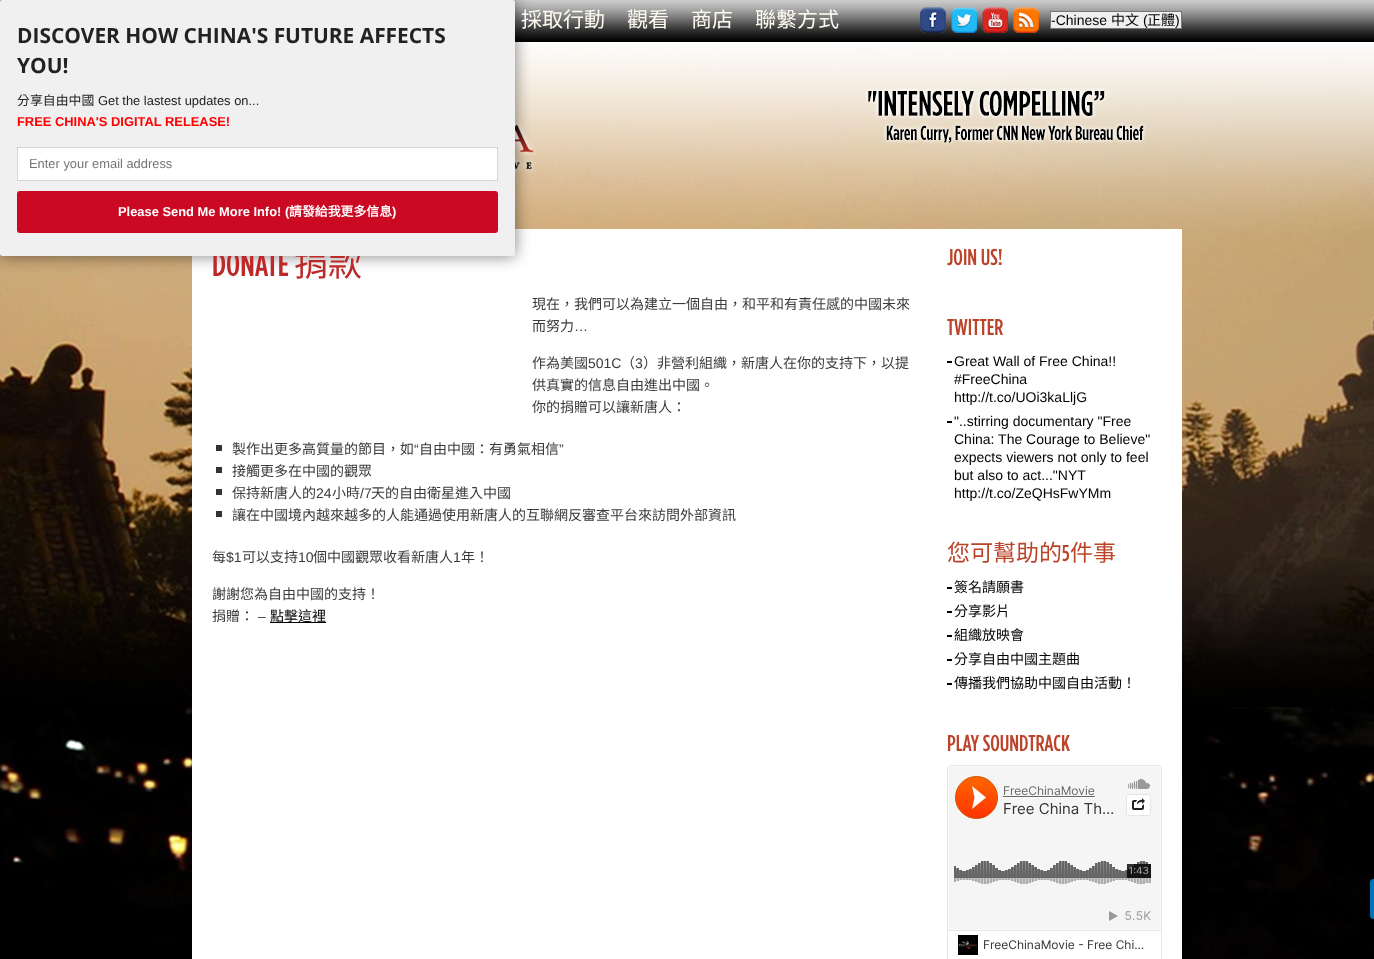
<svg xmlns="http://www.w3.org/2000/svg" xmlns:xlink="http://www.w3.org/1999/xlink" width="1374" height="959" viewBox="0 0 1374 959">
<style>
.cls-1{font:21px Noto Sans CJK TC;fill:#fffbf0}
.cls-2{font:14px Liberation Sans;fill:#000000}
.cls-3{font:14px Noto Sans CJK TC;fill:#000000}
.cls-4{font:500 34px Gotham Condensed;fill:#bc2928}
.cls-5{font:34px Noto Sans CJK TC;fill:#bc2928}
.cls-6{font:14px Noto Sans CJK TC;fill:#3a3a3a}
.cls-7{font:14px Liberation Sans;fill:#3a3a3a}
.cls-8{font:500 23px Gotham Condensed;fill:#bc442a}
.cls-9{font:23px Noto Sans CJK TC;fill:#bc442a}
.cls-10{font:bold 20.9px Open Sans;fill:#222222}
.cls-11{font:12.9px Noto Sans CJK TC;fill:#222222}
.cls-12{font:12.9px Liberation Sans;fill:#222222}
.cls-13{font:bold 12.9px Liberation Sans;fill:#ff0000}
.cls-14{font:12.9px Liberation Sans;fill:#757575}
.cls-15{font:bold 12.9px Liberation Sans;fill:#ffffff}
.cls-16{font:bold 12.9px Noto Sans CJK TC;fill:#ffffff}
</style>
<rect width="100%" height="100%" fill="#ffffff"/>
<image xlink:href="image0.png" x="0" y="44" width="1374" height="915"/>
<image xlink:href="image1.png" x="0" y="0" width="1374" height="42"/>
<image xlink:href="image2.png" x="920" y="7" width="26" height="26"/>
<image xlink:href="image3.png" x="951" y="7" width="26" height="26"/>
<image xlink:href="image4.png" x="982" y="7" width="26" height="26"/>
<image xlink:href="image5.png" x="1013" y="7" width="26" height="26"/>
<rect fill="#efefef" stroke="#767676" x="1050.5" y="11.5" width="131" height="17"/>
<image xlink:href="image6.png" x="515" y="120" width="21" height="54"/>
<image xlink:href="image7.png" x="865" y="88" width="281" height="58"/>
<rect fill="#ffffff" x="192" y="229" width="990" height="730"/>
<rect fill="#333333" x="216" y="445" width="6" height="6"/>
<rect fill="#333333" x="216" y="467" width="6" height="6"/>
<rect fill="#333333" x="216" y="489" width="6" height="6"/>
<rect fill="#333333" x="216" y="511" width="6" height="6"/>
<rect fill="#000000" x="270" y="622" width="56" height="1"/>
<rect fill="#000000" x="947" y="361" width="5" height="2"/>
<rect fill="#000000" x="947" y="421" width="5" height="2"/>
<rect fill="#000000" x="947" y="587" width="5" height="2"/>
<rect fill="#000000" x="947" y="611" width="5" height="2"/>
<rect fill="#000000" x="947" y="635" width="5" height="2"/>
<rect fill="#000000" x="947" y="659" width="5" height="2"/>
<rect fill="#000000" x="947" y="683" width="5" height="2"/>
<image xlink:href="image8.png" x="947" y="765" width="215" height="194"/>
<rect fill="#000000" fill-opacity="0.5" filter="blur(8px)" x="0" y="0" width="515" height="256" rx="2.5"/>
<path fill="#0073b7" d="M1373 879H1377V919H1373C1371.5 919 1370 917.5 1370 916V882C1370 880.5 1371.5 879 1373 879Z"/>
<text class="cls-1" x="521" y="27">採取行動</text>
<text class="cls-1" x="627" y="27">觀看</text>
<text class="cls-1" x="691" y="27">商店</text>
<text class="cls-1" x="755" y="27">聯繫方式</text>
<text class="cls-2" x="1051" y="25">-Chinese</text>
<text class="cls-3" x="1111" y="25">中文</text>
<text class="cls-2" x="1143" y="25">(</text>
<text class="cls-3" x="1147" y="25">正體</text>
<text class="cls-2" x="1175" y="25">)</text>
<text class="cls-4" x="212" y="276">DONATE</text>
<text class="cls-5" x="294" y="276">捐款</text>
<text class="cls-6"><tspan x="532" y="309">現在，我們可以為建立一個自由，和平和有責任感的中國未來</tspan><tspan x="532" y="331">而努力</tspan></text>
<text class="cls-7" x="574" y="331">…</text>
<text class="cls-6" x="532" y="368">作為美國</text>
<text class="cls-7" x="588" y="368">501C</text>
<text class="cls-6" x="621" y="368">（</text>
<text class="cls-7" x="635" y="368">3</text>
<text class="cls-6" x="643" y="368">）非營利組織，新唐人在你的支持下，以提</text>
<text class="cls-6"><tspan x="532" y="390">供真實的信息自由進出中國。</tspan><tspan x="532" y="412">你的捐贈可以讓新唐人：</tspan></text>
<text class="cls-6" x="232" y="454">製作出更多高質量的節目，如</text>
<text class="cls-7" x="414" y="454">“</text>
<text class="cls-6" x="419" y="454">自由中國：有勇氣相信</text>
<text class="cls-7" x="559" y="454">”</text>
<text class="cls-6"><tspan x="232" y="476">接觸更多在中國的觀眾</tspan><tspan x="232" y="498">保持新唐人的</tspan></text>
<text class="cls-7" x="316" y="498">24</text>
<text class="cls-6" x="332" y="498">小時</text>
<text class="cls-7" x="360" y="498">/7</text>
<text class="cls-6" x="371" y="498">天的自由衛星進入中國</text>
<text class="cls-6" x="232" y="520">讓在中國境內越來越多的人能通過使用新唐人的互聯網反審查平台來訪問外部資訊</text>
<text class="cls-6" x="212" y="562">每</text>
<text class="cls-7" x="226" y="562">$1</text>
<text class="cls-6" x="242" y="562">可以支持</text>
<text class="cls-7" x="298" y="562">10</text>
<text class="cls-6" x="313" y="562">個中國觀眾收看新唐人</text>
<text class="cls-7" x="453" y="562">1</text>
<text class="cls-6" x="461" y="562">年！</text>
<text class="cls-6"><tspan x="212" y="599">謝謝您為自由中國的支持！</tspan><tspan x="212" y="621">捐贈：</tspan></text>
<text class="cls-7" x="258" y="621">–</text>
<text class="cls-3" x="270" y="621">點擊這裡</text>
<text class="cls-8" x="947" y="265">JOIN US!</text>
<text class="cls-8" x="947" y="335">TWITTER</text>
<text class="cls-2"><tspan x="954" y="366">Great Wall of Free China!!</tspan><tspan x="954" y="384">#FreeChina</tspan><tspan x="954" y="402">http://t.co/UOi3kaLljG</tspan><tspan x="954" y="426">"..stirring documentary "Free</tspan><tspan x="954" y="444">China: The Courage to Believe"</tspan><tspan x="954" y="462">expects viewers not only to feel</tspan><tspan x="954" y="480">but also to act..."NYT</tspan><tspan x="954" y="498">http://t.co/ZeQHsFwYMm</tspan></text>
<text class="cls-9" x="947" y="561">您可幫助的</text>
<text class="cls-8" x="1062" y="561">5</text>
<text class="cls-9" x="1070" y="561">件事</text>
<text class="cls-3"><tspan x="954" y="592">簽名請願書</tspan><tspan x="954" y="616">分享影片</tspan><tspan x="954" y="640">組織放映會</tspan><tspan x="954" y="664">分享自由中國主題曲</tspan><tspan x="954" y="688">傳播我們協助中國自由活動！</tspan></text>
<text class="cls-8" x="947" y="751">PLAY SOUNDTRACK</text>
<rect fill="#f0f0f0" x="0" y="0" width="515" height="256" rx="2.5"/>
<text class="cls-10"><tspan x="17" y="43">DISCOVER HOW CHINA'S FUTURE AFFECTS</tspan><tspan x="17" y="73">YOU!</tspan></text>
<text class="cls-11" x="17" y="105">分享自由中國</text>
<text class="cls-12" x="98" y="105">Get the lastest updates on...</text>
<text class="cls-13" x="17" y="126">FREE CHINA'S DIGITAL RELEASE!</text>
<rect fill="#ffffff" stroke="#cccccc" stroke-width="0.8" x="17.4" y="147.4" width="480.2" height="33.2"/>
<text class="cls-14" x="29" y="168">Enter your email address</text>
<rect fill="#cc0923" x="17" y="191" width="481" height="42" rx="3"/>
<text class="cls-15" x="118" y="216">Please Send Me More Info! (</text>
<text class="cls-16" x="289" y="216">請發給我更多信息</text>
<text class="cls-15" x="392" y="216">)</text>
</svg>
